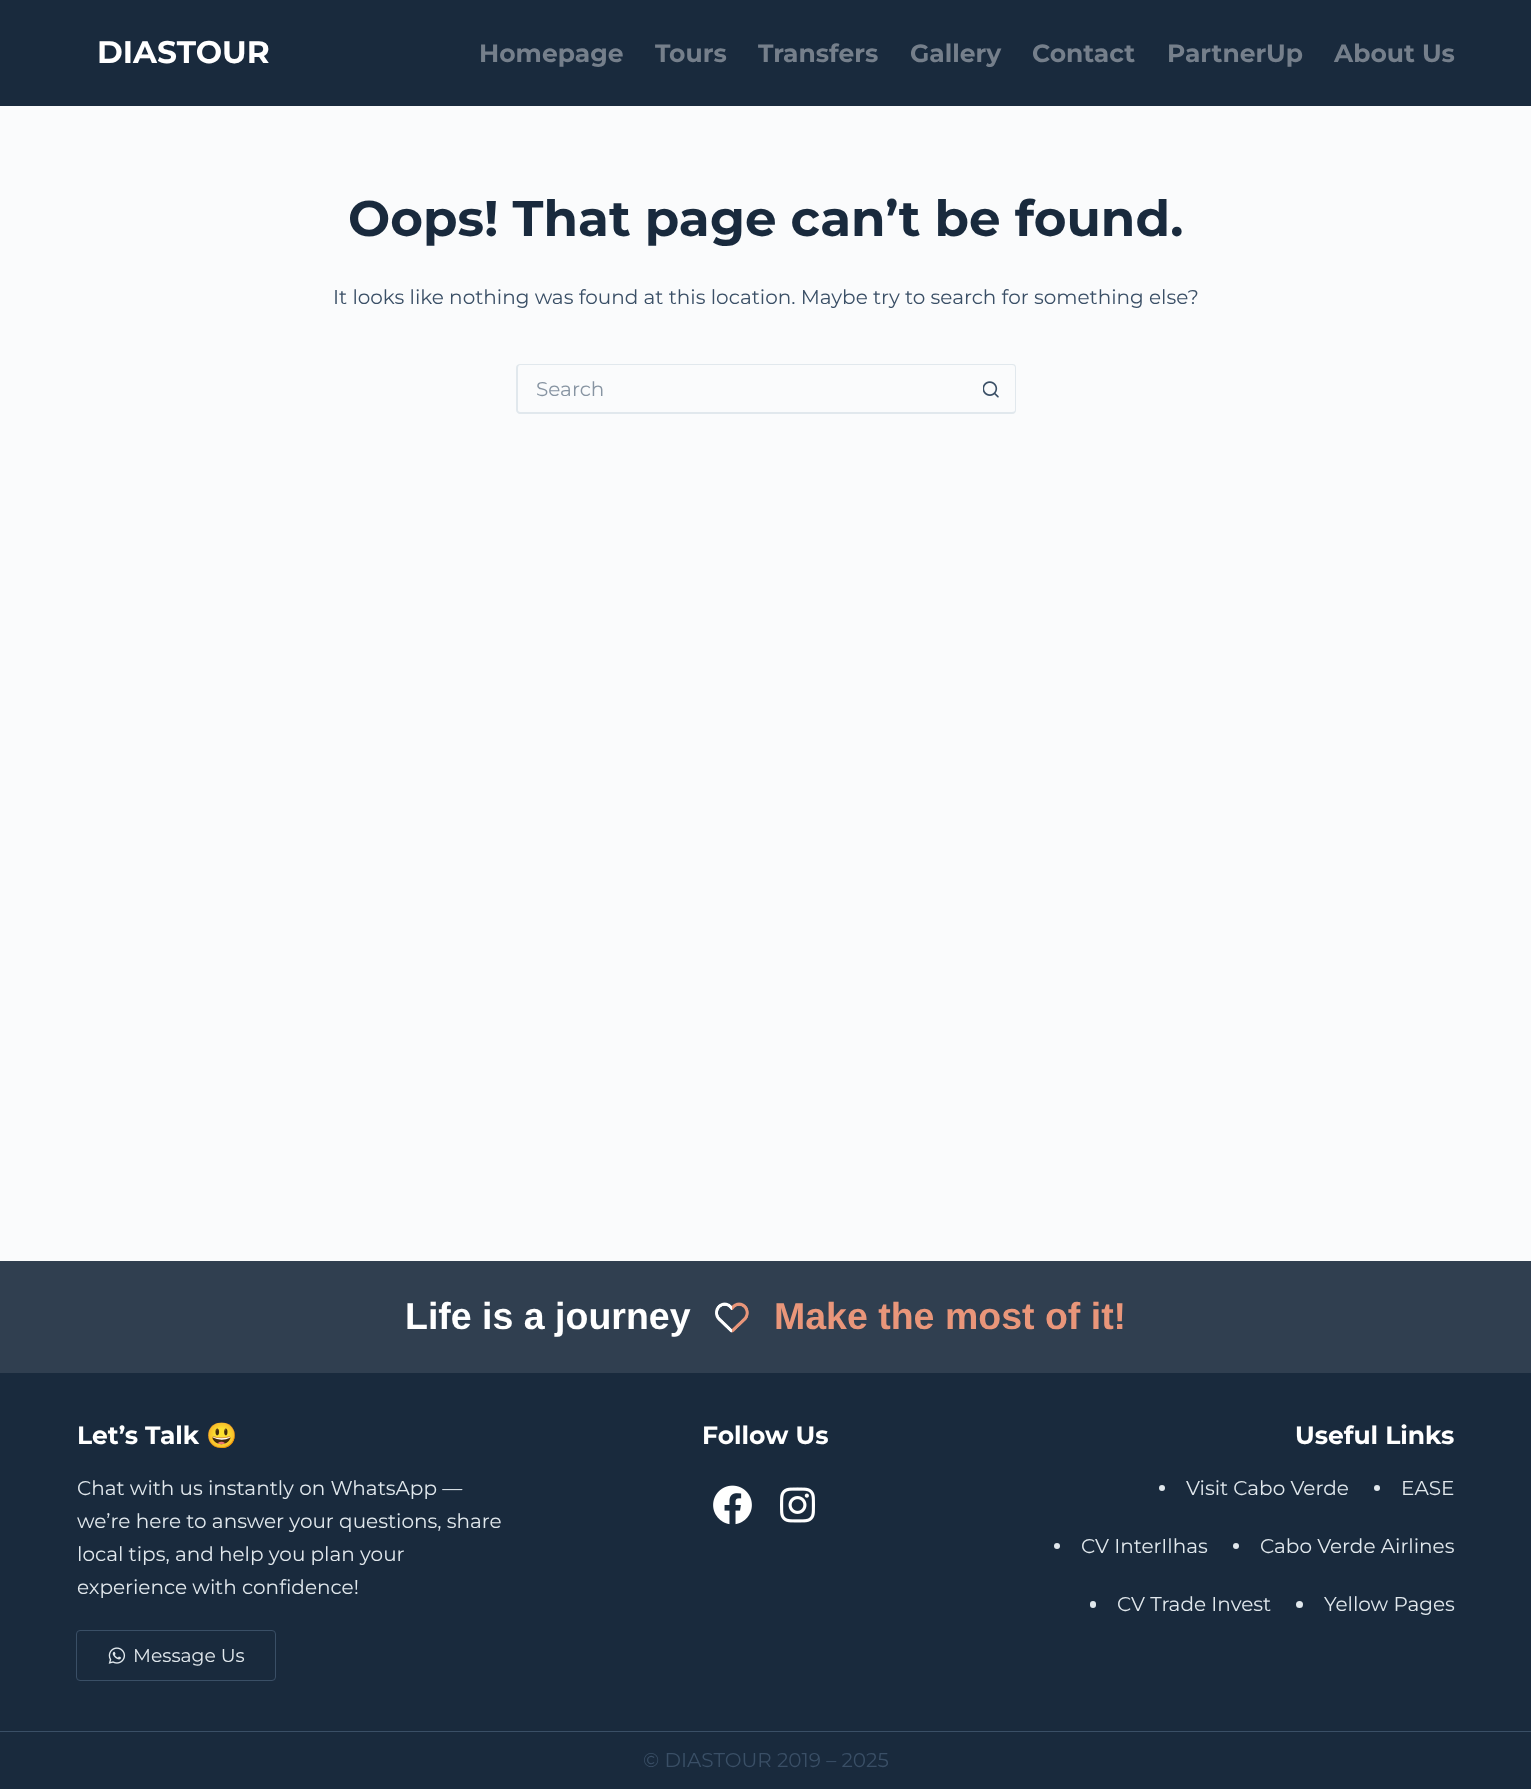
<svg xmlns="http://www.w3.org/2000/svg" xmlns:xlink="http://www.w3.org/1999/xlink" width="1531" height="1789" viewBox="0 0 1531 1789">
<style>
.cls-1{font:bold 31.25px Montserrat;fill:#ffffff}
.cls-2{font:bold 25px Montserrat;fill:#757f8b}
.cls-3{font:bold 50px Montserrat;fill:#192a3d}
.cls-4{font:20px Montserrat;fill:#3a4f66}
.cls-5{font:20px Montserrat;fill:#8794a2}
.cls-6{font:bold 37.5px Liberation Sans;fill:#ffffff}
.cls-7{font:bold 37.5px Liberation Sans;fill:#e9967a}
.cls-8{font:bold 25px Montserrat;fill:#ffffff}
.cls-9{font:bold 25px Noto Color Emoji;fill:#ffffff}
.cls-10{font:20px Montserrat;fill:#e1e8ed}
.cls-11{font:18.75px Montserrat;fill:#e1e8ed}
</style>
<rect width="100%" height="100%" fill="#fafbfc"/>
<rect fill="#192a3d" x="0" y="0" width="1531" height="106"/>
<path fill="#e1e8ed" fill-rule="evenodd" d="M520 364H966V414H520C518 414 516 412 516 410V368C516 365 518 364 520 364ZM520 365H966V412H520C519 412 518 411 518 410V368C518 366 519 365 520 365Z"/>
<path fill="#e1e8ed" fill-rule="evenodd" d="M966 364H1012C1015 364 1016 365 1016 368V410C1016 412 1015 414 1012 414H966ZM966 365H1012C1014 365 1015 366 1015 368V410C1015 411 1014 412 1012 412H966Z"/>
<image xlink:href="image0.png" x="983" y="381" width="16" height="17"/>
<rect fill="#192a3d" x="0" y="1373" width="1531" height="416"/>
<rect fill="#303f50" x="0" y="1261" width="1531" height="112"/>
<image xlink:href="image1.png" x="715" y="1302" width="34" height="31"/>
<rect fill="none" stroke="#3a4f66" x="76.5" y="1630.5" width="199" height="50" rx="3.5"/>
<image xlink:href="image2.png" x="108" y="1647" width="18" height="17"/>
<image xlink:href="image3.png" x="713" y="1485" width="39" height="40"/>
<image xlink:href="image4.png" x="780" y="1487" width="35" height="36"/>
<circle fill="#e1e8ed" cx="1162" cy="1488" r="3"/>
<circle fill="#e1e8ed" cx="1377" cy="1488" r="3"/>
<circle fill="#e1e8ed" cx="1057" cy="1546" r="3"/>
<circle fill="#e1e8ed" cx="1236" cy="1546" r="3"/>
<rect fill="#e1e8ed" x="1090" y="1601" width="6" height="7" rx="3"/>
<circle fill="#e1e8ed" cx="1299.5" cy="1604.5" r="3.5"/>
<rect fill="#3a4f66" x="0" y="1731" width="1531" height="1"/>
<text class="cls-1" x="97" y="63">DIASTOUR</text>
<text class="cls-2" x="479" y="62">Homepage</text>
<text class="cls-2" x="655" y="62">Tours</text>
<text class="cls-2" x="758" y="62">Transfers</text>
<text class="cls-2" x="910" y="62">Gallery</text>
<text class="cls-2" x="1032" y="62">Contact</text>
<text class="cls-2" x="1167" y="62">PartnerUp</text>
<text class="cls-2" x="1334" y="62">About Us</text>
<text class="cls-3" x="348" y="236">Oops! That page can’t be found.</text>
<text class="cls-4" x="333" y="304">It looks like nothing was found at this location. Maybe try to search for something else?</text>
<text class="cls-5" x="536" y="396">Search</text>
<text class="cls-6" x="405" y="1329">Life is a journey</text>
<text class="cls-7" x="774" y="1329">Make the most of it!</text>
<text class="cls-8" x="77" y="1444">Let’s Talk</text>
<text class="cls-9" x="206" y="1444">😃</text>
<text class="cls-10"><tspan x="77" y="1495">Chat with us instantly on WhatsApp —</tspan><tspan x="77" y="1528">we’re here to answer your questions, share</tspan><tspan x="77" y="1561">local tips, and help you plan your</tspan><tspan x="77" y="1594">experience with confidence!</tspan></text>
<text class="cls-11" x="133" y="1662">Message Us</text>
<text class="cls-8" x="702" y="1444">Follow Us</text>
<text class="cls-8" x="1295" y="1444">Useful Links</text>
<text class="cls-10" x="1186" y="1495">Visit Cabo Verde</text>
<text class="cls-10" x="1401" y="1495">EASE</text>
<text class="cls-10" x="1081" y="1553">CV InterIlhas</text>
<text class="cls-10" x="1260" y="1553">Cabo Verde Airlines</text>
<text class="cls-10" x="1117" y="1611">CV Trade Invest</text>
<text class="cls-10" x="1324" y="1611">Yellow Pages</text>
<text class="cls-4" x="643" y="1767">© DIASTOUR 2019 – 2025</text>
</svg>
